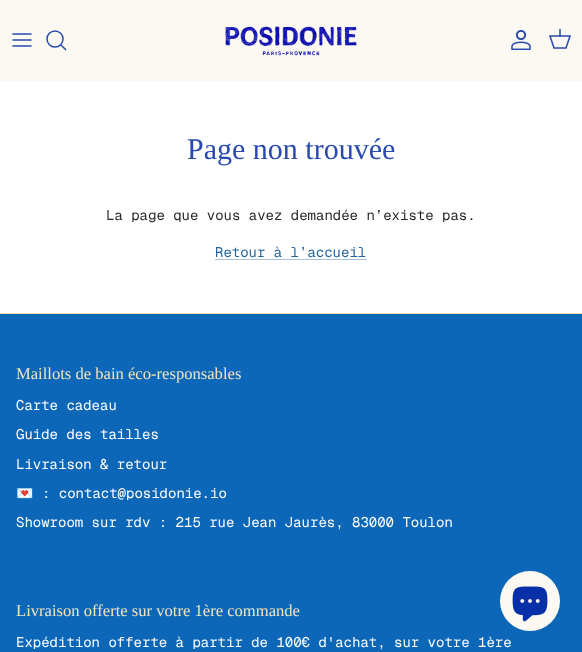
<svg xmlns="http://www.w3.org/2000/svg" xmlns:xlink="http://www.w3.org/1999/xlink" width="582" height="652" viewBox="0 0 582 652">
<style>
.cls-1{font:30px Liberation Serif;fill:#2849ae}
.cls-2{font:14px Geist Mono;fill:#282828}
.cls-3{font:14px Geist Mono;fill:#23659f}
.cls-4{font:16.6px Liberation Serif;fill:#f1e5be}
.cls-5{font:14px Geist Mono;fill:#ffffff}
.cls-6{font:14px Noto Color Emoji;fill:#ffffff}
</style>
<rect width="100%" height="100%" fill="#ffffff"/>
<rect fill="#fcf9f2" x="0" y="0" width="582" height="81"/>
<path fill="none" stroke="#2849ae" stroke-width="1.5" stroke-linecap="round" stroke-linejoin="round" d="M13 40H31M13 34H31M13 46H31"/>
<circle fill="none" stroke="#2849ae" stroke-width="1.5" cx="55" cy="39" r="8"/>
<path fill="none" stroke="#2849ae" stroke-width="1.5" stroke-linecap="square" d="M61 45L65.5 49.5"/>
<image xlink:href="image0.png" x="225" y="26" width="132" height="30"/>
<image xlink:href="image1.png" x="511" y="30" width="20" height="20"/>
<path fill="none" stroke="#2849ae" stroke-width="1.5" d="M550 36H570L566 48H554Z"/>
<rect fill="#2849ae" fill-opacity="0.75" x="559" y="29" width="2" height="8"/>
<rect fill="#a7c1d9" x="215" y="259" width="152" height="1"/>
<rect fill="#0d67b8" x="0" y="314" width="582" height="338"/>
<rect fill="#ebe0a3" x="0" y="313" width="582" height="1"/>
<circle fill="#fcf9f2" cx="530" cy="601" r="30"/>
<image xlink:href="image2.png" x="512" y="586" width="36" height="36"/>
<text class="cls-1" x="187" y="159">Page non trouvée</text>
<text class="cls-2" x="106" y="220">La page que vous avez demandée n’existe pas.</text>
<text class="cls-3" x="215" y="257">Retour à l’accueil</text>
<text class="cls-4" x="16" y="379">Maillots de bain éco-responsables</text>
<text class="cls-5" x="16" y="410">Carte cadeau</text>
<text class="cls-5" x="16" y="439">Guide des tailles</text>
<text class="cls-5" x="16" y="469">Livraison &amp; retour</text>
<text class="cls-6" x="16" y="498">💌</text>
<text class="cls-5" x="42" y="498">: contact@posidonie.io</text>
<text class="cls-5" x="16" y="527">Showroom sur rdv : 215 rue Jean Jaurès, 83000 Toulon</text>
<text class="cls-4" x="16" y="616">Livraison offerte sur votre 1ère commande</text>
<text class="cls-5" x="16" y="647">Expédition offerte à partir de 100€ d'achat, sur votre 1ère</text>
</svg>
